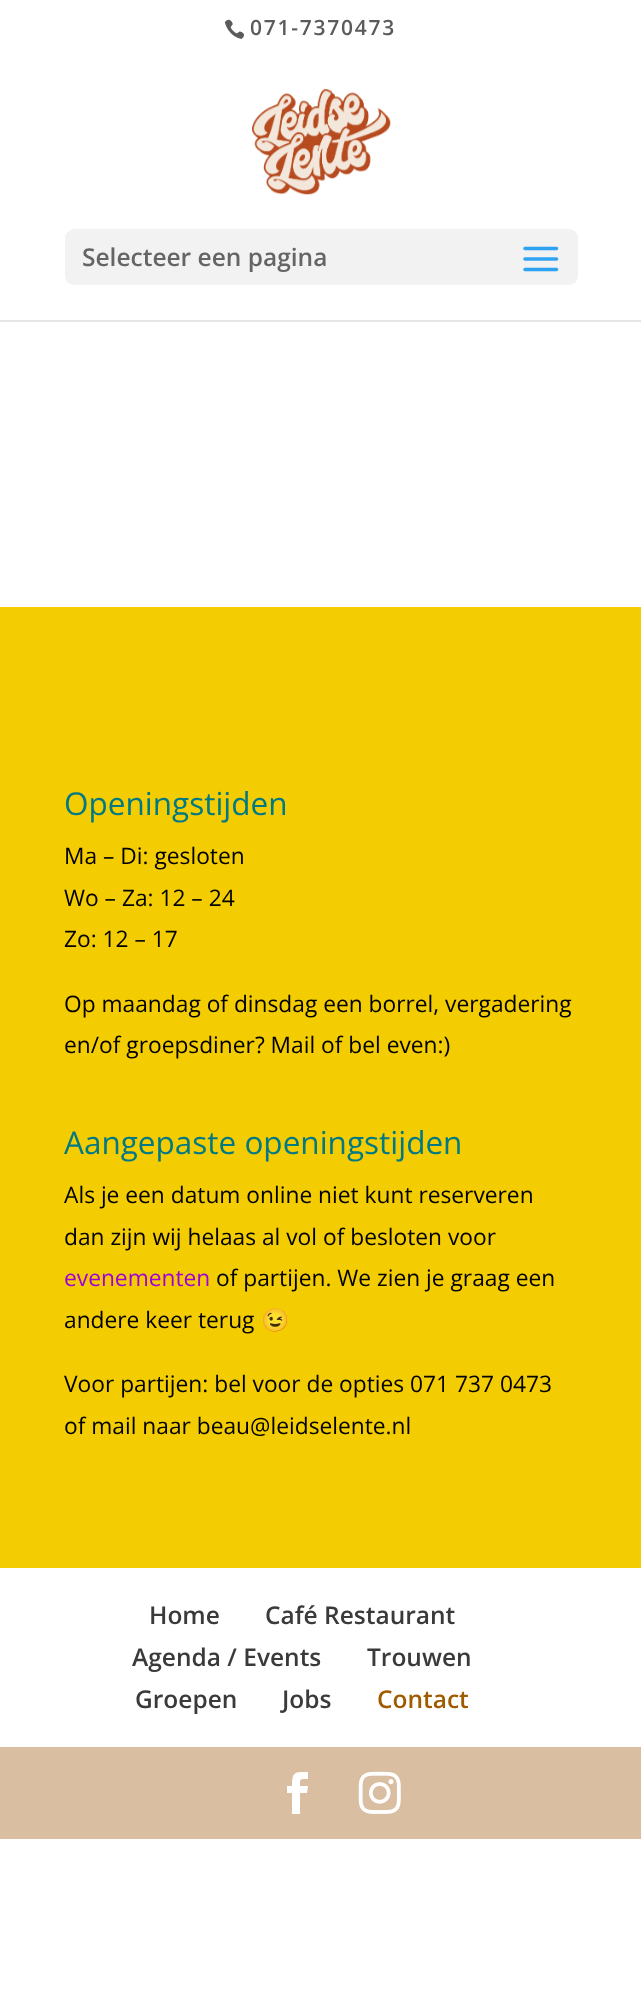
<svg xmlns="http://www.w3.org/2000/svg" xmlns:xlink="http://www.w3.org/1999/xlink" width="641" height="1997" viewBox="0 0 641 1997">
<style>
.cls-1{font:600 21px Open Sans;letter-spacing:1.75px;fill:#5b5b5b}
.cls-2{font:600 24.5px Open Sans;fill:#656565}
.cls-3{font:31.5px Open Sans;fill:#017984}
.cls-4{font:22.75px Open Sans;fill:#000000}
.cls-5{font:22.75px Open Sans;fill:#a000db}
.cls-6{font:22.75px Noto Color Emoji;fill:#000000}
.cls-7{font:600 24.5px Open Sans;fill:#3a3a3a}
.cls-8{font:600 24.5px Open Sans;fill:#a05b00}
</style>
<rect width="100%" height="100%" fill="#ffffff"/>
<image xlink:href="image0.png" x="224" y="19" width="21" height="20"/>
<rect fill="#e6e6e6" x="0" y="320" width="641" height="2"/>
<image xlink:href="image1.png" x="252" y="89" width="139" height="106"/>
<rect fill="#f2f2f2" x="65" y="229" width="513" height="56" rx="9"/>
<image xlink:href="image2.png" x="523" y="246" width="36" height="26"/>
<rect fill="#f4cc02" x="0" y="607" width="641" height="961"/>
<rect fill="#dabea2" x="0" y="1747" width="641" height="92"/>
<path fill="#ffffff" d="M292 1814H300V1793H307L308 1786H300C300 1778 300 1779 308 1779V1772C295 1772 292 1771 292 1786H287V1793H292Z"/>
<image xlink:href="image3.png" x="358" y="1771" width="43" height="43"/>
<text class="cls-1" x="250" y="35">071-7370473</text>
<text class="cls-2" x="82" y="266">Selecteer een pagina</text>
<text class="cls-3" x="64" y="815">Openingstijden</text>
<text class="cls-4"><tspan x="64" y="864">Ma – Di: gesloten</tspan><tspan x="64" y="906">Wo – Za: 12 – 24</tspan><tspan x="64" y="947">Zo: 12 – 17</tspan></text>
<text class="cls-4"><tspan x="64" y="1012">Op maandag of dinsdag een borrel, vergadering</tspan><tspan x="64" y="1053">en/of groepsdiner? Mail of bel even:)</tspan></text>
<text class="cls-3" x="64" y="1154">Aangepaste openingstijden</text>
<text class="cls-4"><tspan x="64" y="1203">Als je een datum online niet kunt reserveren</tspan><tspan x="64" y="1245">dan zijn wij helaas al vol of besloten voor</tspan></text>
<text class="cls-5" x="64" y="1286">evenementen</text>
<text class="cls-4" x="216" y="1286">of partijen. We zien je graag een</text>
<text class="cls-4" x="64" y="1328">andere keer terug</text>
<text class="cls-6" x="261" y="1328">😉</text>
<text class="cls-4"><tspan x="64" y="1392">Voor partijen: bel voor de opties 071 737 0473</tspan><tspan x="64" y="1434">of mail naar beau@leidselente.nl</tspan></text>
<text class="cls-7" x="149" y="1624">Home</text>
<text class="cls-7" x="265" y="1624">Café Restaurant</text>
<text class="cls-7" x="132" y="1666">Agenda / Events</text>
<text class="cls-7" x="367" y="1666">Trouwen</text>
<text class="cls-7" x="135" y="1708">Groepen</text>
<text class="cls-7" x="282" y="1708">Jobs</text>
<text class="cls-8" x="377" y="1708">Contact</text>
</svg>
